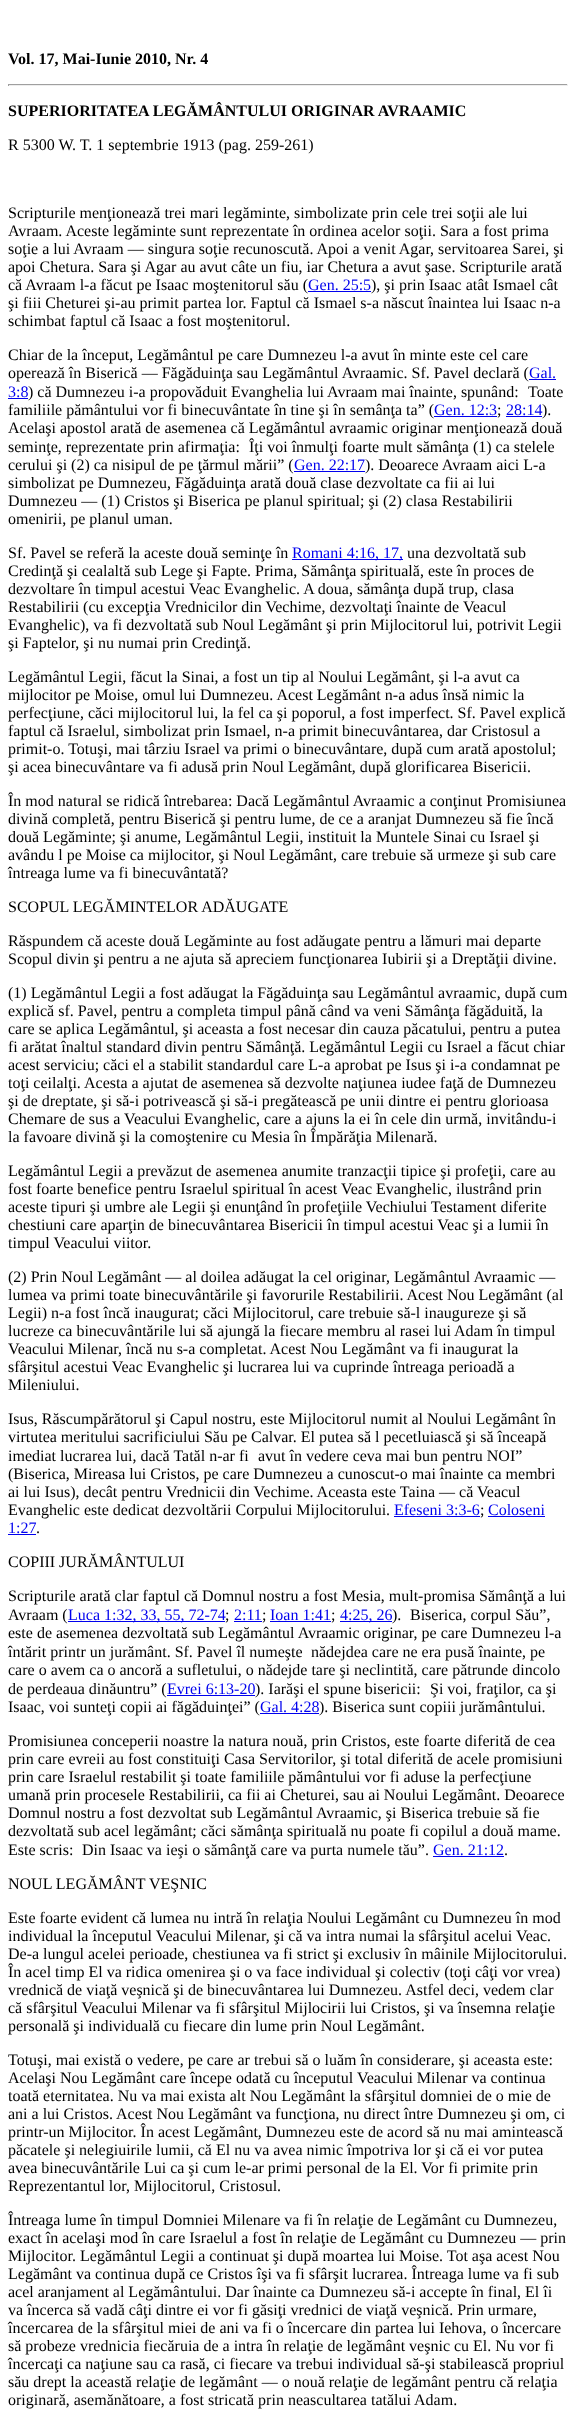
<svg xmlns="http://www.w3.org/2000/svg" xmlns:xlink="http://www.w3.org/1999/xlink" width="576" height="2413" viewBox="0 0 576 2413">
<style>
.cls-1{font:bold 16px Liberation Serif;fill:#000000}
.cls-2{font:16px Liberation Serif;fill:#000000}
.cls-3{font:16px Liberation Serif;fill:#0000ee}
</style>
<rect width="100%" height="100%" fill="#ffffff"/>
<rect fill="#9f9f9f" x="8" y="84" width="560" height="1"/>
<rect fill="#eeeeee" x="567" y="84" width="1" height="2"/>
<rect fill="#eeeeee" x="8" y="85" width="560" height="1"/>
<rect fill="#9f9f9f" x="8" y="84" width="1" height="2"/>
<rect fill="#0000ee" x="308" y="291" width="63" height="1"/>
<rect fill="#0000ee" x="529" y="379" width="27" height="1"/>
<rect fill="#0000ee" x="8" y="398" width="20" height="1"/>
<rect fill="#0000ee" x="434" y="416" width="63" height="1"/>
<rect fill="#0000ee" x="506" y="416" width="36" height="1"/>
<rect fill="#0000ee" x="294" y="471" width="71" height="1"/>
<rect fill="#0000ee" x="292" y="559" width="111" height="1"/>
<rect fill="#0000ee" x="394" y="1516" width="86" height="1"/>
<rect fill="#0000ee" x="488" y="1516" width="57" height="1"/>
<rect fill="#0000ee" x="8" y="1534" width="28" height="1"/>
<rect fill="#0000ee" x="68" y="1621" width="157" height="1"/>
<rect fill="#0000ee" x="234" y="1621" width="28" height="1"/>
<rect fill="#0000ee" x="270" y="1621" width="61" height="1"/>
<rect fill="#0000ee" x="340" y="1621" width="52" height="1"/>
<rect fill="#0000ee" x="167" y="1695" width="88" height="1"/>
<rect fill="#0000ee" x="260" y="1713" width="59" height="1"/>
<rect fill="#0000ee" x="433" y="1856" width="71" height="1"/>
<text class="cls-1" x="8" y="64">Vol. 17, Mai-Iunie 2010, Nr. 4</text>
<text class="cls-1" x="8" y="116">SUPERIORITATEA LEGĂMÂNTULUI ORIGINAR AVRAAMIC</text>
<text class="cls-2" x="8" y="150">R 5300 W. T. 1 septembrie 1913 (pag. 259-261)</text>
<text class="cls-2"><tspan x="8" y="218">Scripturile menţionează trei mari legăminte, simbolizate prin cele trei soţii ale lui</tspan><tspan x="8" y="236">Avraam. Aceste legăminte sunt reprezentate în ordinea acelor soţii. Sara a fost prima</tspan><tspan x="8" y="254">soţie a lui Avraam — singura soţie recunoscută. Apoi a venit Agar, servitoarea Sarei, şi</tspan><tspan x="8" y="272">apoi Chetura. Sara şi Agar au avut câte un fiu, iar Chetura a avut şase. Scripturile arată</tspan><tspan x="8" y="290">că Avraam l-a făcut pe Isaac moştenitorul său (</tspan></text>
<text class="cls-3" x="308" y="290">Gen. 25:5</text>
<text class="cls-2" x="371" y="290">), şi prin Isaac atât Ismael cât</text>
<text class="cls-2"><tspan x="8" y="308">şi fiii Cheturei şi-au primit partea lor. Faptul că Ismael s-a născut înaintea lui Isaac n-a</tspan><tspan x="8" y="326">schimbat faptul că Isaac a fost moştenitorul.</tspan></text>
<text class="cls-2"><tspan x="8" y="360">Chiar de la început, Legământul pe care Dumnezeu l-a avut în minte este cel care</tspan><tspan x="8" y="378">operează în Biserică — Făgăduinţa sau Legământul Avraamic. Sf. Pavel declară (</tspan></text>
<text class="cls-3" x="529" y="378">Gal.</text>
<text class="cls-3" x="8" y="397">3:8</text>
<text class="cls-2" x="28" y="397">) că Dumnezeu i-a propovăduit Evanghelia lui Avraam mai înainte, spunând:</text>
<text class="cls-2" x="528" y="397">Toate</text>
<text class="cls-2" x="8" y="415">familiile pământului vor fi binecuvântate în tine şi în semânţa ta” (</text>
<text class="cls-3" x="434" y="415">Gen. 12:3</text>
<text class="cls-2" x="497" y="415">;</text>
<text class="cls-3" x="506" y="415">28:14</text>
<text class="cls-2" x="542" y="415">).</text>
<text class="cls-2"><tspan x="8" y="433">Acelaşi apostol arată de asemenea că Legământul avraamic originar menţionează două</tspan><tspan x="8" y="452">seminţe, reprezentate prin afirmaţia:</tspan></text>
<text class="cls-2" x="249" y="452">Îţi voi înmulţi foarte mult sămânţa (1) ca stelele</text>
<text class="cls-2" x="8" y="470">cerului şi (2) ca nisipul de pe ţărmul mării” (</text>
<text class="cls-3" x="294" y="470">Gen. 22:17</text>
<text class="cls-2" x="365" y="470">). Deoarece Avraam aici L-a</text>
<text class="cls-2"><tspan x="8" y="488">simbolizat pe Dumnezeu, Făgăduinţa arată două clase dezvoltate ca fii ai lui</tspan><tspan x="8" y="506">Dumnezeu — (1) Cristos şi Biserica pe planul spiritual; şi (2) clasa Restabilirii</tspan><tspan x="8" y="524">omenirii, pe planul uman.</tspan></text>
<text class="cls-2" x="8" y="558">Sf. Pavel se referă la aceste două seminţe în</text>
<text class="cls-3" x="292" y="558">Romani 4:16, 17,</text>
<text class="cls-2" x="407" y="558">una dezvoltată sub</text>
<text class="cls-2"><tspan x="8" y="576">Credinţă şi cealaltă sub Lege şi Fapte. Prima, Sămânţa spirituală, este în proces de</tspan><tspan x="8" y="594">dezvoltare în timpul acestui Veac Evanghelic. A doua, sămânţa după trup, clasa</tspan><tspan x="8" y="612">Restabilirii (cu excepţia Vrednicilor din Vechime, dezvoltaţi înainte de Veacul</tspan><tspan x="8" y="630">Evanghelic), va fi dezvoltată sub Noul Legământ şi prin Mijlocitorul lui, potrivit Legii</tspan><tspan x="8" y="648">şi Faptelor, şi nu numai prin Credinţă.</tspan></text>
<text class="cls-2"><tspan x="8" y="682">Legământul Legii, făcut la Sinai, a fost un tip al Noului Legământ, şi l-a avut ca</tspan><tspan x="8" y="700">mijlocitor pe Moise, omul lui Dumnezeu. Acest Legământ n-a adus însă nimic la</tspan><tspan x="8" y="718">perfecţiune, căci mijlocitorul lui, la fel ca şi poporul, a fost imperfect. Sf. Pavel explică</tspan><tspan x="8" y="736">faptul că Israelul, simbolizat prin Ismael, n-a primit binecuvântarea, dar Cristosul a</tspan><tspan x="8" y="754">primit-o. Totuşi, mai târziu Israel va primi o binecuvântare, după cum arată apostolul;</tspan><tspan x="8" y="772">şi acea binecuvântare va fi adusă prin Noul Legământ, după glorificarea Bisericii.</tspan></text>
<text class="cls-2"><tspan x="8" y="806">În mod natural se ridică întrebarea: Dacă Legământul Avraamic a conţinut Promisiunea</tspan><tspan x="8" y="824">divină completă, pentru Biserică şi pentru lume, de ce a aranjat Dumnezeu să fie încă</tspan><tspan x="8" y="842">două Legăminte; şi anume, Legământul Legii, instituit la Muntele Sinai cu Israel şi</tspan><tspan x="8" y="860">avându l pe Moise ca mijlocitor, şi Noul Legământ, care trebuie să urmeze şi sub care</tspan><tspan x="8" y="878">întreaga lume va fi binecuvântată?</tspan></text>
<text class="cls-2" x="8" y="912">SCOPUL LEGĂMINTELOR ADĂUGATE</text>
<text class="cls-2"><tspan x="8" y="946">Răspundem că aceste două Legăminte au fost adăugate pentru a lămuri mai departe</tspan><tspan x="8" y="964">Scopul divin şi pentru a ne ajuta să apreciem funcţionarea Iubirii şi a Dreptăţii divine.</tspan></text>
<text class="cls-2"><tspan x="8" y="998">(1) Legământul Legii a fost adăugat la Făgăduinţa sau Legământul avraamic, după cum</tspan><tspan x="8" y="1016">explică sf. Pavel, pentru a completa timpul până când va veni Sămânţa făgăduită, la</tspan><tspan x="8" y="1034">care se aplica Legământul, şi aceasta a fost necesar din cauza păcatului, pentru a putea</tspan><tspan x="8" y="1052">fi arătat înaltul standard divin pentru Sămânţă. Legământul Legii cu Israel a făcut chiar</tspan><tspan x="8" y="1070">acest serviciu; căci el a stabilit standardul care L-a aprobat pe Isus şi i-a condamnat pe</tspan><tspan x="8" y="1088">toţi ceilalţi. Acesta a ajutat de asemenea să dezvolte naţiunea iudee faţă de Dumnezeu</tspan><tspan x="8" y="1106">şi de dreptate, şi să-i potrivească şi să-i pregătească pe unii dintre ei pentru glorioasa</tspan><tspan x="8" y="1124">Chemare de sus a Veacului Evanghelic, care a ajuns la ei în cele din urmă, invitându-i</tspan><tspan x="8" y="1142">la favoare divină şi la comoştenire cu Mesia în Împărăţia Milenară.</tspan></text>
<text class="cls-2"><tspan x="8" y="1176">Legământul Legii a prevăzut de asemenea anumite tranzacţii tipice şi profeţii, care au</tspan><tspan x="8" y="1194">fost foarte benefice pentru Israelul spiritual în acest Veac Evanghelic, ilustrând prin</tspan><tspan x="8" y="1212">aceste tipuri şi umbre ale Legii şi enunţând în profeţiile Vechiului Testament diferite</tspan><tspan x="8" y="1230">chestiuni care aparţin de binecuvântarea Bisericii în timpul acestui Veac şi a lumii în</tspan><tspan x="8" y="1248">timpul Veacului viitor.</tspan></text>
<text class="cls-2"><tspan x="8" y="1282">(2) Prin Noul Legământ — al doilea adăugat la cel originar, Legământul Avraamic —</tspan><tspan x="8" y="1300">lumea va primi toate binecuvântările şi favorurile Restabilirii. Acest Nou Legământ (al</tspan><tspan x="8" y="1318">Legii) n-a fost încă inaugurat; căci Mijlocitorul, care trebuie să-l inaugureze şi să</tspan><tspan x="8" y="1336">lucreze ca binecuvântările lui să ajungă la fiecare membru al rasei lui Adam în timpul</tspan><tspan x="8" y="1354">Veacului Milenar, încă nu s-a completat. Acest Nou Legământ va fi inaugurat la</tspan><tspan x="8" y="1372">sfârşitul acestui Veac Evanghelic şi lucrarea lui va cuprinde întreaga perioadă a</tspan><tspan x="8" y="1390">Mileniului.</tspan></text>
<text class="cls-2"><tspan x="8" y="1424">Isus, Răscumpărătorul şi Capul nostru, este Mijlocitorul numit al Noului Legământ în</tspan><tspan x="8" y="1442">virtutea meritului sacrificiului Său pe Calvar. El putea să l pecetluiască şi să înceapă</tspan><tspan x="8" y="1461">imediat lucrarea lui, dacă Tatăl n-ar fi</tspan></text>
<text class="cls-2" x="258" y="1461">avut în vedere ceva mai bun pentru NOI”</text>
<text class="cls-2"><tspan x="8" y="1479">(Biserica, Mireasa lui Cristos, pe care Dumnezeu a cunoscut-o mai înainte ca membri</tspan><tspan x="8" y="1497">ai lui Isus), decât pentru Vrednicii din Vechime. Aceasta este Taina — că Veacul</tspan><tspan x="8" y="1515">Evanghelic este dedicat dezvoltării Corpului Mijlocitorului.</tspan></text>
<text class="cls-3" x="394" y="1515">Efeseni 3:3-6</text>
<text class="cls-2" x="480" y="1515">;</text>
<text class="cls-3" x="488" y="1515">Coloseni</text>
<text class="cls-3" x="8" y="1533">1:27</text>
<text class="cls-2" x="36" y="1533">.</text>
<text class="cls-2" x="8" y="1567">COPIII JURĂMÂNTULUI</text>
<text class="cls-2"><tspan x="8" y="1601">Scripturile arată clar faptul că Domnul nostru a fost Mesia, mult-promisa Sămânţă a lui</tspan><tspan x="8" y="1620">Avraam (</tspan></text>
<text class="cls-3" x="68" y="1620">Luca 1:32, 33, 55, 72-74</text>
<text class="cls-2" x="225" y="1620">;</text>
<text class="cls-3" x="234" y="1620">2:11</text>
<text class="cls-2" x="262" y="1620">;</text>
<text class="cls-3" x="270" y="1620">Ioan 1:41</text>
<text class="cls-2" x="331" y="1620">;</text>
<text class="cls-3" x="340" y="1620">4:25, 26</text>
<text class="cls-2" x="392" y="1620">).</text>
<text class="cls-2" x="410" y="1620">Biserica, corpul Său”,</text>
<text class="cls-2"><tspan x="8" y="1638">este de asemenea dezvoltată sub Legământul Avraamic originar, pe care Dumnezeu l-a</tspan><tspan x="8" y="1657">întărit printr un jurământ. Sf. Pavel îl numeşte</tspan></text>
<text class="cls-2" x="311" y="1657">nădejdea care ne era pusă înainte, pe</text>
<text class="cls-2"><tspan x="8" y="1675">care o avem ca o ancoră a sufletului, o nădejde tare şi neclintită, care pătrunde dincolo</tspan><tspan x="8" y="1694">de perdeaua dinăuntru” (</tspan></text>
<text class="cls-3" x="167" y="1694">Evrei 6:13-20</text>
<text class="cls-2" x="255" y="1694">). Iarăşi el spune bisericii:</text>
<text class="cls-2" x="430" y="1694">Şi voi, fraţilor, ca şi</text>
<text class="cls-2" x="8" y="1712">Isaac, voi sunteţi copii ai făgăduinţei” (</text>
<text class="cls-3" x="260" y="1712">Gal. 4:28</text>
<text class="cls-2" x="319" y="1712">). Biserica sunt copiii jurământului.</text>
<text class="cls-2"><tspan x="8" y="1746">Promisiunea conceperii noastre la natura nouă, prin Cristos, este foarte diferită de cea</tspan><tspan x="8" y="1764">prin care evreii au fost constituiţi Casa Servitorilor, şi total diferită de acele promisiuni</tspan><tspan x="8" y="1782">prin care Israelul restabilit şi toate familiile pământului vor fi aduse la perfecţiune</tspan><tspan x="8" y="1800">umană prin procesele Restabilirii, ca fii ai Cheturei, sau ai Noului Legământ. Deoarece</tspan><tspan x="8" y="1818">Domnul nostru a fost dezvoltat sub Legământul Avraamic, şi Biserica trebuie să fie</tspan><tspan x="8" y="1836">dezvoltată sub acel legământ; căci sămânţa spirituală nu poate fi copilul a două mame.</tspan><tspan x="8" y="1855">Este scris:</tspan></text>
<text class="cls-2" x="82" y="1855">Din Isaac va ieşi o sămânţă care va purta numele tău”.</text>
<text class="cls-3" x="433" y="1855">Gen. 21:12</text>
<text class="cls-2" x="504" y="1855">.</text>
<text class="cls-2" x="8" y="1889">NOUL LEGĂMÂNT VEŞNIC</text>
<text class="cls-2"><tspan x="8" y="1923">Este foarte evident că lumea nu intră în relaţia Noului Legământ cu Dumnezeu în mod</tspan><tspan x="8" y="1941">individual la începutul Veacului Milenar, şi că va intra numai la sfârşitul acelui Veac.</tspan><tspan x="8" y="1959">De-a lungul acelei perioade, chestiunea va fi strict şi exclusiv în mâinile Mijlocitorului.</tspan><tspan x="8" y="1977">În acel timp El va ridica omenirea şi o va face individual şi colectiv (toţi câţi vor vrea)</tspan><tspan x="8" y="1995">vrednică de viaţă veşnică şi de binecuvântarea lui Dumnezeu. Astfel deci, vedem clar</tspan><tspan x="8" y="2013">că sfârşitul Veacului Milenar va fi sfârşitul Mijlocirii lui Cristos, şi va însemna relaţie</tspan><tspan x="8" y="2031">personală şi individuală cu fiecare din lume prin Noul Legământ.</tspan></text>
<text class="cls-2"><tspan x="8" y="2065">Totuşi, mai există o vedere, pe care ar trebui să o luăm în considerare, şi aceasta este:</tspan><tspan x="8" y="2083">Acelaşi Nou Legământ care începe odată cu începutul Veacului Milenar va continua</tspan><tspan x="8" y="2101">toată eternitatea. Nu va mai exista alt Nou Legământ la sfârşitul domniei de o mie de</tspan><tspan x="8" y="2119">ani a lui Cristos. Acest Nou Legământ va funcţiona, nu direct între Dumnezeu şi om, ci</tspan><tspan x="8" y="2137">printr-un Mijlocitor. În acest Legământ, Dumnezeu este de acord să nu mai amintească</tspan><tspan x="8" y="2155">păcatele şi nelegiuirile lumii, că El nu va avea nimic împotriva lor şi că ei vor putea</tspan><tspan x="8" y="2173">avea binecuvântările Lui ca şi cum le-ar primi personal de la El. Vor fi primite prin</tspan><tspan x="8" y="2191">Reprezentantul lor, Mijlocitorul, Cristosul.</tspan></text>
<text class="cls-2"><tspan x="8" y="2225">Întreaga lume în timpul Domniei Milenare va fi în relaţie de Legământ cu Dumnezeu,</tspan><tspan x="8" y="2243">exact în acelaşi mod în care Israelul a fost în relaţie de Legământ cu Dumnezeu — prin</tspan><tspan x="8" y="2261">Mijlocitor. Legământul Legii a continuat şi după moartea lui Moise. Tot aşa acest Nou</tspan><tspan x="8" y="2279">Legământ va continua după ce Cristos îşi va fi sfârşit lucrarea. Întreaga lume va fi sub</tspan><tspan x="8" y="2297">acel aranjament al Legământului. Dar înainte ca Dumnezeu să-i accepte în final, El îi</tspan><tspan x="8" y="2315">va încerca să vadă câţi dintre ei vor fi găsiţi vrednici de viaţă veşnică. Prin urmare,</tspan><tspan x="8" y="2333">încercarea de la sfârşitul miei de ani va fi o încercare din partea lui Iehova, o încercare</tspan><tspan x="8" y="2351">să probeze vrednicia fiecăruia de a intra în relaţie de legământ veşnic cu El. Nu vor fi</tspan><tspan x="8" y="2369">încercaţi ca naţiune sau ca rasă, ci fiecare va trebui individual să-şi stabilească propriul</tspan><tspan x="8" y="2387">său drept la această relaţie de legământ — o nouă relaţie de legământ pentru că relaţia</tspan><tspan x="8" y="2405">originară, asemănătoare, a fost stricată prin neascultarea tatălui Adam.</tspan></text>
</svg>
